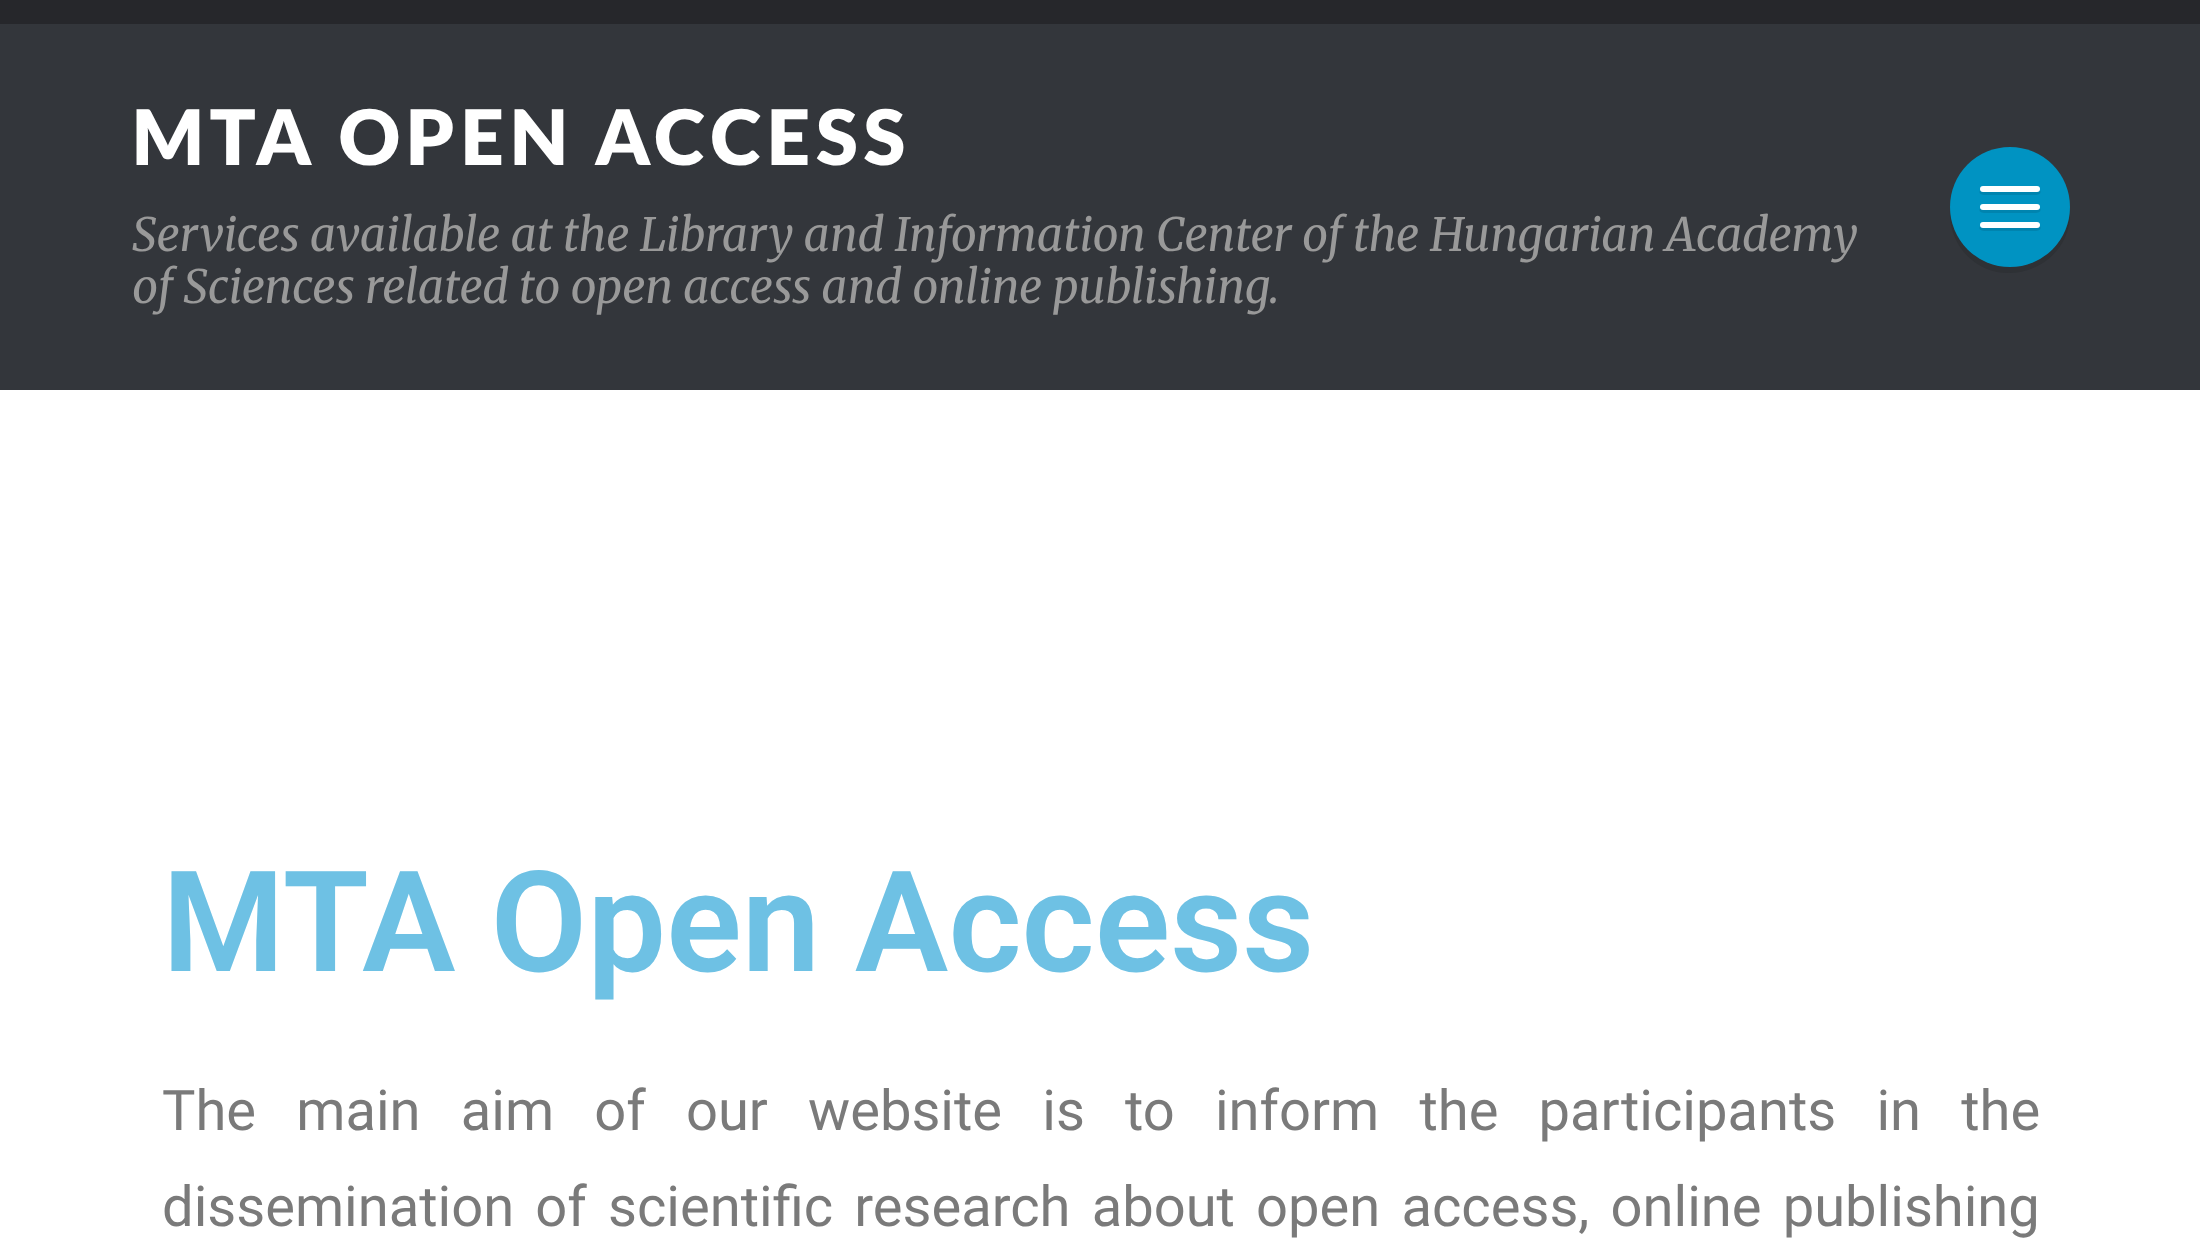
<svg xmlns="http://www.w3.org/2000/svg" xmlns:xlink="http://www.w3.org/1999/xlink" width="2200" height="1247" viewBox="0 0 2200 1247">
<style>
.cls-1{font:900 76.5px Lato;letter-spacing:6px;fill:#ffffff}
.cls-2{font:italic 300 45.9px Merriweather;fill:#999999}
.cls-3{font:600 140.25px Roboto;fill:#6ec1e4}
.cls-4{font:56.1px Roboto;fill:#7a7a7a}
</style>
<rect width="100%" height="100%" fill="#ffffff"/>
<rect fill="#33363b" x="0" y="24" width="2200" height="366"/>
<rect fill="#26272b" x="0" y="0" width="2200" height="24"/>
<path fill="#2e3135" d="M1950 210C1949 223 1953 236 1960 247C1994 297 2073 270 2070 210C2068 242 2042 267 2010 267C1978 267 1952 242 1950 210Z"/>
<circle fill="#0093c2" cx="2010" cy="207" r="60"/>
<path fill="#0084af" d="M1980 190C1977 196 1986 195 1992 195H2028C2034 195 2043 196 2040 190L2037 192H1983Z"/>
<rect fill="#ffffff" x="1980" y="186" width="60" height="6" rx="3"/>
<path fill="#0084af" d="M1980 208C1977 214 1986 213 1992 213H2028C2034 213 2043 214 2040 208L2037 210H1983Z"/>
<rect fill="#ffffff" x="1980" y="204" width="60" height="6" rx="3"/>
<path fill="#0084af" d="M1980 226C1977 232 1986 231 1992 231H2028C2034 231 2043 232 2040 226L2037 228H1983Z"/>
<rect fill="#ffffff" x="1980" y="222" width="60" height="6" rx="3"/>
<text class="cls-1" x="132" y="165">MTA OPEN ACCESS</text>
<text class="cls-2"><tspan x="132" y="251">Services available at the Library and Information Center of the Hungarian Academy</tspan><tspan x="132" y="303">of Sciences related to open access and online publishing.</tspan></text>
<text class="cls-3" x="162" y="971">MTA Open Access</text>
<text class="cls-4"><tspan x="162" y="1130" word-spacing="26.25">The main aim of our website is to inform the participants in the</tspan><tspan x="162" y="1226" word-spacing="7.25">dissemination of scientific research about open access, online publishing</tspan></text>
</svg>
